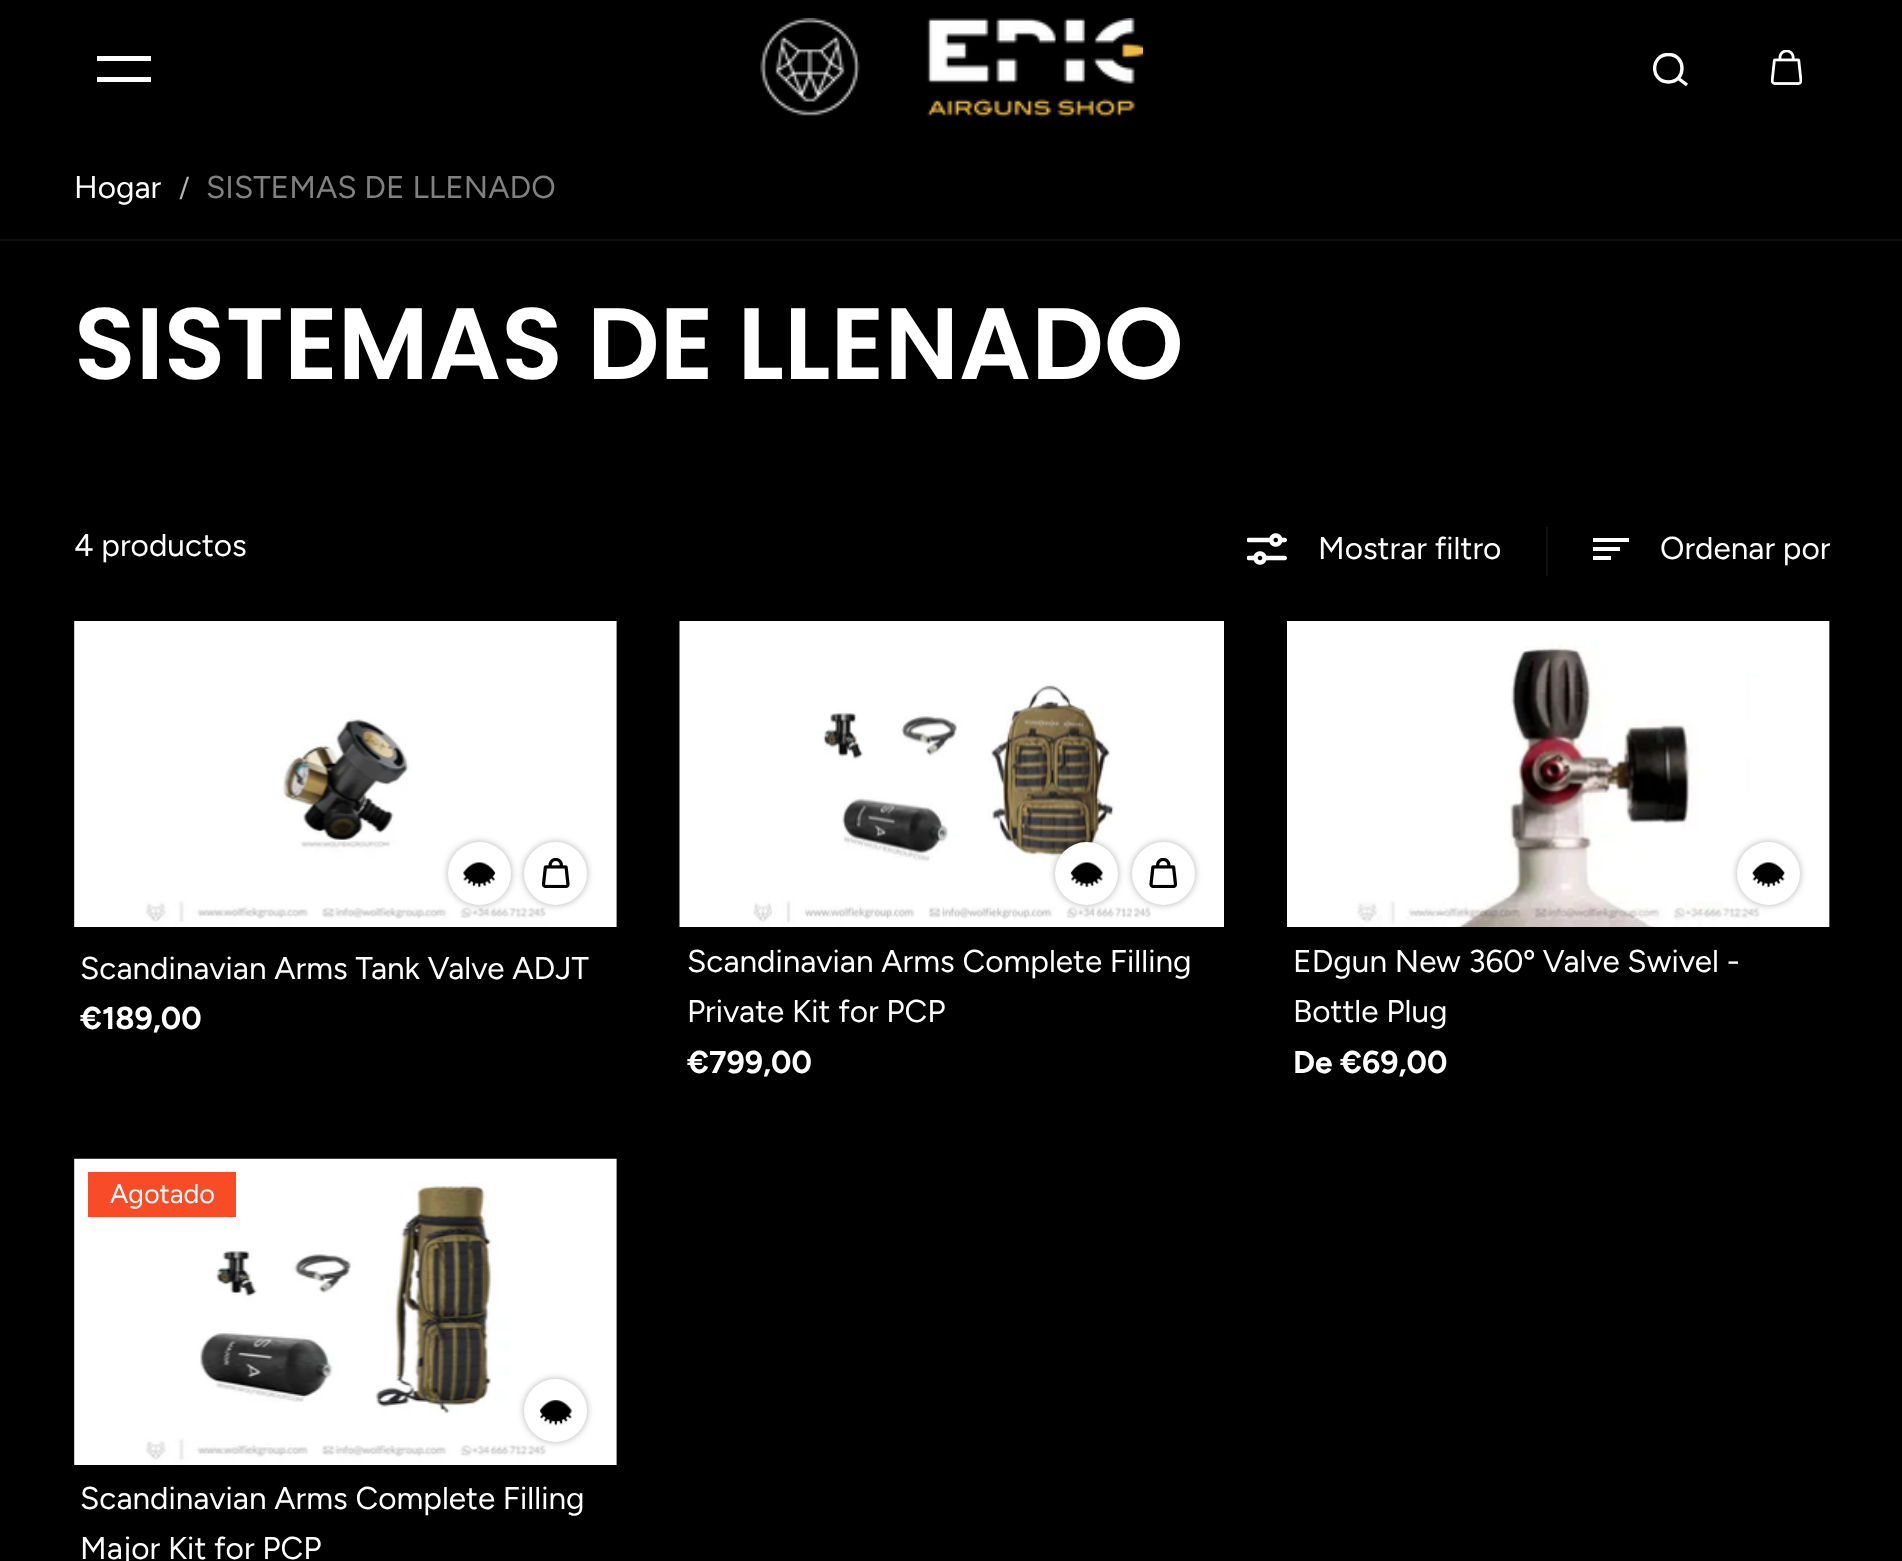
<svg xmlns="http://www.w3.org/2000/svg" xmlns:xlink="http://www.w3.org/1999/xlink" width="1902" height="1561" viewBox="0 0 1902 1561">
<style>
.cls-1{font:31.5px Figtree;fill:#ffffff}
.cls-2{font:27px Figtree;fill:#b3b3b3}
.cls-3{font:31.5px Figtree;fill:#808080}
.cls-4{font:600 101.25px Poppins;fill:#ffffff}
.cls-5{font:bold 31.5px Figtree;fill:#ffffff}
.cls-6{font:27px Figtree;fill:#ffffff}
</style>
<defs>
<clipPath id="clip1"><rect x="1653" y="53" width="35" height="34"/></clipPath>
</defs>
<rect width="100%" height="100%" fill="#000000"/>
<rect fill="#ffffff" x="97" y="56" width="54" height="5"/>
<rect fill="#ffffff" x="97" y="77" width="54" height="5"/>
<image xlink:href="image0.png" x="760" y="18" width="383" height="99"/>
<g clip-path="url(#clip1)">
<path fill="none" stroke="#ffffff" stroke-width="3.4" d="M1668.5 82C1686.5 82 1686.5 54.5 1668.5 54.5C1650 54.5 1650 82 1668.5 82Z"/>
</g>
<path fill="none" stroke="#ffffff" stroke-width="3.4" d="M1678.5 78.5L1687 85"/>
<image xlink:href="image1.png" x="1771" y="50" width="31" height="35"/>
<rect fill="#101010" x="0" y="239" width="1902" height="2"/>
<image xlink:href="image2.png" x="1247" y="533" width="40" height="32"/>
<rect fill="#101010" x="1546" y="527" width="2" height="49"/>
<rect fill="#ffffff" x="1593" y="538" width="36" height="4"/>
<rect fill="#ffffff" x="1593" y="547" width="27" height="4"/>
<rect fill="#ffffff" x="1593" y="556" width="18" height="4"/>
<rect fill="#363535" x="74" y="621" width="543" height="306"/>
<image xlink:href="image3.png" x="74" y="621" width="543" height="306"/>
<rect fill="#000000" fill-opacity="0.3" filter="blur(3.5px)" x="448" y="842" width="63" height="63" rx="31.5"/>
<circle fill="#ffffff" cx="479.5" cy="873.5" r="31.5"/>
<image xlink:href="image4.png" x="463" y="862" width="33" height="26"/>
<rect fill="#000000" fill-opacity="0.3" filter="blur(3.5px)" x="524" y="842" width="63" height="63" rx="31.5"/>
<circle fill="#ffffff" cx="555.5" cy="873.5" r="31.5"/>
<image xlink:href="image5.png" x="542" y="858" width="28" height="30"/>
<image xlink:href="image6.png" x="679" y="621" width="545" height="306"/>
<rect fill="#000000" fill-opacity="0.3" filter="blur(3.5px)" x="1055" y="842" width="63" height="63" rx="31.5"/>
<circle fill="#ffffff" cx="1086.5" cy="873.5" r="31.5"/>
<image xlink:href="image7.png" x="1070" y="862" width="33" height="26"/>
<rect fill="#000000" fill-opacity="0.3" filter="blur(3.5px)" x="1132" y="842" width="63" height="63" rx="31.5"/>
<circle fill="#ffffff" cx="1163.5" cy="873.5" r="31.5"/>
<image xlink:href="image8.png" x="1149" y="858" width="28" height="30"/>
<image xlink:href="image9.png" x="1287" y="621" width="543" height="306"/>
<rect fill="#000000" fill-opacity="0.3" filter="blur(3.5px)" x="1737" y="842" width="63" height="63" rx="31.5"/>
<circle fill="#ffffff" cx="1768.5" cy="873.5" r="31.5"/>
<image xlink:href="image10.png" x="1752" y="862" width="33" height="26"/>
<rect fill="#363535" x="74" y="1159" width="543" height="306"/>
<image xlink:href="image11.png" x="74" y="1158" width="543" height="307"/>
<rect fill="#f74c25" x="88" y="1172" width="148" height="45"/>
<rect fill="#000000" fill-opacity="0.3" filter="blur(3.5px)" x="524" y="1379" width="63" height="63" rx="31.5"/>
<circle fill="#ffffff" cx="555.5" cy="1410.5" r="31.5"/>
<image xlink:href="image12.png" x="540" y="1400" width="32" height="26"/>
<text class="cls-1" x="74" y="198">Hogar</text>
<text class="cls-2" x="179" y="197">/</text>
<text class="cls-3" x="206" y="198">SISTEMAS DE LLENADO</text>
<text class="cls-4" x="74" y="379">SISTEMAS DE LLENADO</text>
<text class="cls-1" x="74" y="556">4 productos</text>
<text class="cls-1" x="1318" y="559">Mostrar filtro</text>
<text class="cls-1" x="1660" y="559">Ordenar por</text>
<text class="cls-1" x="80" y="979">Scandinavian Arms Tank Valve ADJT</text>
<text class="cls-5" x="80" y="1029">€189,00</text>
<text class="cls-1"><tspan x="687" y="972">Scandinavian Arms Complete Filling</tspan><tspan x="687" y="1022">Private Kit for PCP</tspan></text>
<text class="cls-5" x="687" y="1073">€799,00</text>
<text class="cls-1"><tspan x="1293" y="972">EDgun New 360º Valve Swivel -</tspan><tspan x="1293" y="1022">Bottle Plug</tspan></text>
<text class="cls-5" x="1293" y="1073">De €69,00</text>
<text class="cls-6" x="110" y="1203">Agotado</text>
<text class="cls-1"><tspan x="80" y="1509">Scandinavian Arms Complete Filling</tspan><tspan x="80" y="1559">Major Kit for PCP</tspan></text>
</svg>
